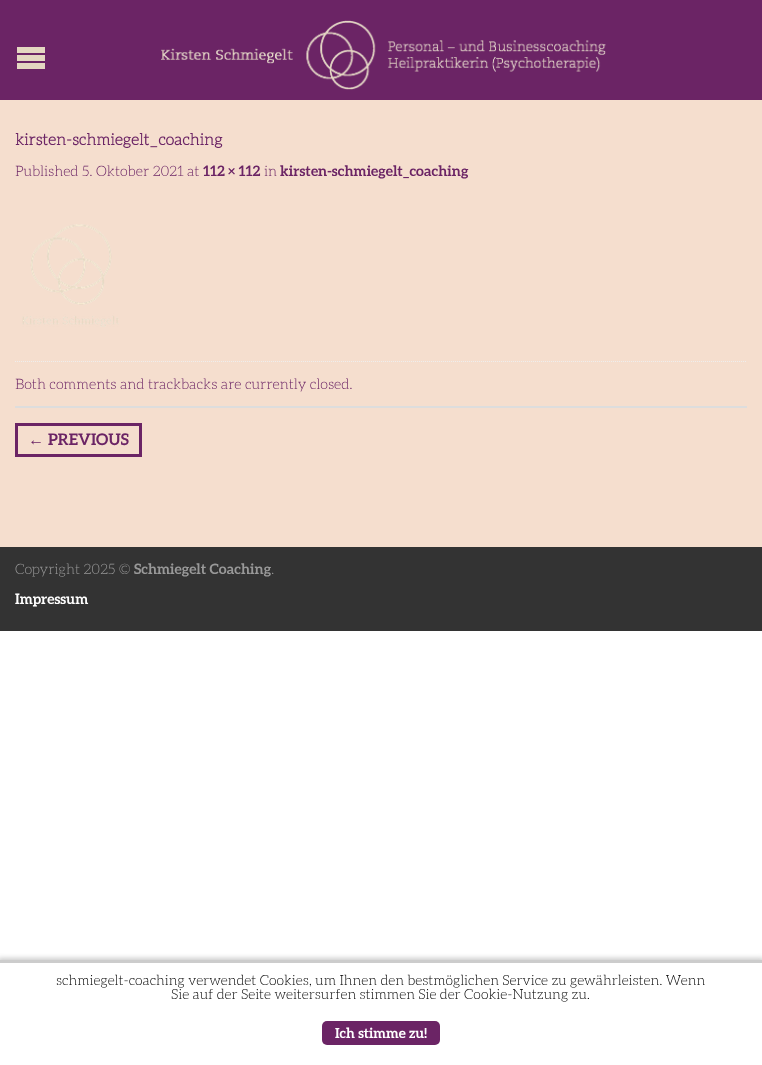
<svg xmlns="http://www.w3.org/2000/svg" xmlns:xlink="http://www.w3.org/1999/xlink" width="762" height="1065" viewBox="0 0 762 1065">
<style>
.cls-1{font:bold 16px Aleo;fill:#6b2465}
.cls-2{font:300 14.4px Aleo;fill:#6b2465}
.cls-3{font:bold 14.4px 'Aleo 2';fill:#6b2465}
.cls-4{font:16px Liberation Sans;fill:#6b2465}
.cls-5{font:bold 16px 'Aleo 2';fill:#6b2465}
.cls-6{font:300 14.4px Aleo;fill:#999999}
.cls-7{font:bold 14.4px 'Aleo 2';fill:#999999}
.cls-8{font:bold 14.4px 'Aleo 2';fill:#ffffff}
.cls-9{font:300 14px Aleo;fill:#000000}
.cls-10{font:bold 14px 'Aleo 2';fill:#ffffff}
</style>
<defs>
<clipPath id="clip1"><rect x="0" y="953" width="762" height="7"/></clipPath>
</defs>
<rect width="100%" height="100%" fill="#ffffff"/>
<rect fill="#6b2465" x="0" y="0" width="762" height="100"/>
<image xlink:href="image0.png" x="17" y="47" width="28" height="22"/>
<image xlink:href="image1.png" x="161" y="20" width="445" height="70"/>
<rect fill="#f5dece" x="0" y="100" width="762" height="447"/>
<image xlink:href="image2.png" x="22" y="224" width="97" height="103"/>
<path fill="none" stroke="#eeeeee" stroke-dasharray="1 1" d="M15 361.5H747"/>
<rect fill="#dddddd" x="15" y="406" width="732" height="2"/>
<rect fill="none" stroke="#6b2465" stroke-width="3" x="16.5" y="424.5" width="124" height="31"/>
<rect fill="#333333" x="0" y="547" width="762" height="84"/>
<g clip-path="url(#clip1)">
<rect fill="#cccccc" filter="blur(2.5px)" x="-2" y="958" width="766" height="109"/>
</g>
<rect fill="#cccccc" x="0" y="960" width="762" height="3"/>
<rect fill="#6b2465" x="322" y="1021" width="118" height="24" rx="5"/>
<text class="cls-1" x="15" y="145">kirsten-schmiegelt_coaching</text>
<text class="cls-2" x="15" y="176">Published 5. Oktober 2021 at</text>
<text class="cls-3" x="203" y="176">112 × 112</text>
<text class="cls-2" x="264" y="176">in</text>
<text class="cls-3" x="280" y="176">kirsten-schmiegelt_coaching</text>
<text class="cls-2" x="15" y="389">Both comments and trackbacks are currently closed.</text>
<text class="cls-4" x="28" y="445">←</text>
<text class="cls-5" x="48" y="445">PREVIOUS</text>
<text class="cls-6" x="15" y="574">Copyright 2025 ©</text>
<text class="cls-7" x="134" y="574">Schmiegelt Coaching</text>
<text class="cls-6" x="271" y="574">.</text>
<text class="cls-8" x="15" y="604">Impressum</text>
<text class="cls-9" x="56" y="985">schmiegelt-coaching verwendet Cookies, um Ihnen den bestmöglichen Service zu gewährleisten. Wenn</text>
<text class="cls-9" x="171" y="999">Sie auf der Seite weitersurfen stimmen Sie der Cookie-Nutzung zu.</text>
<text class="cls-10" x="335" y="1038">Ich stimme zu!</text>
</svg>
